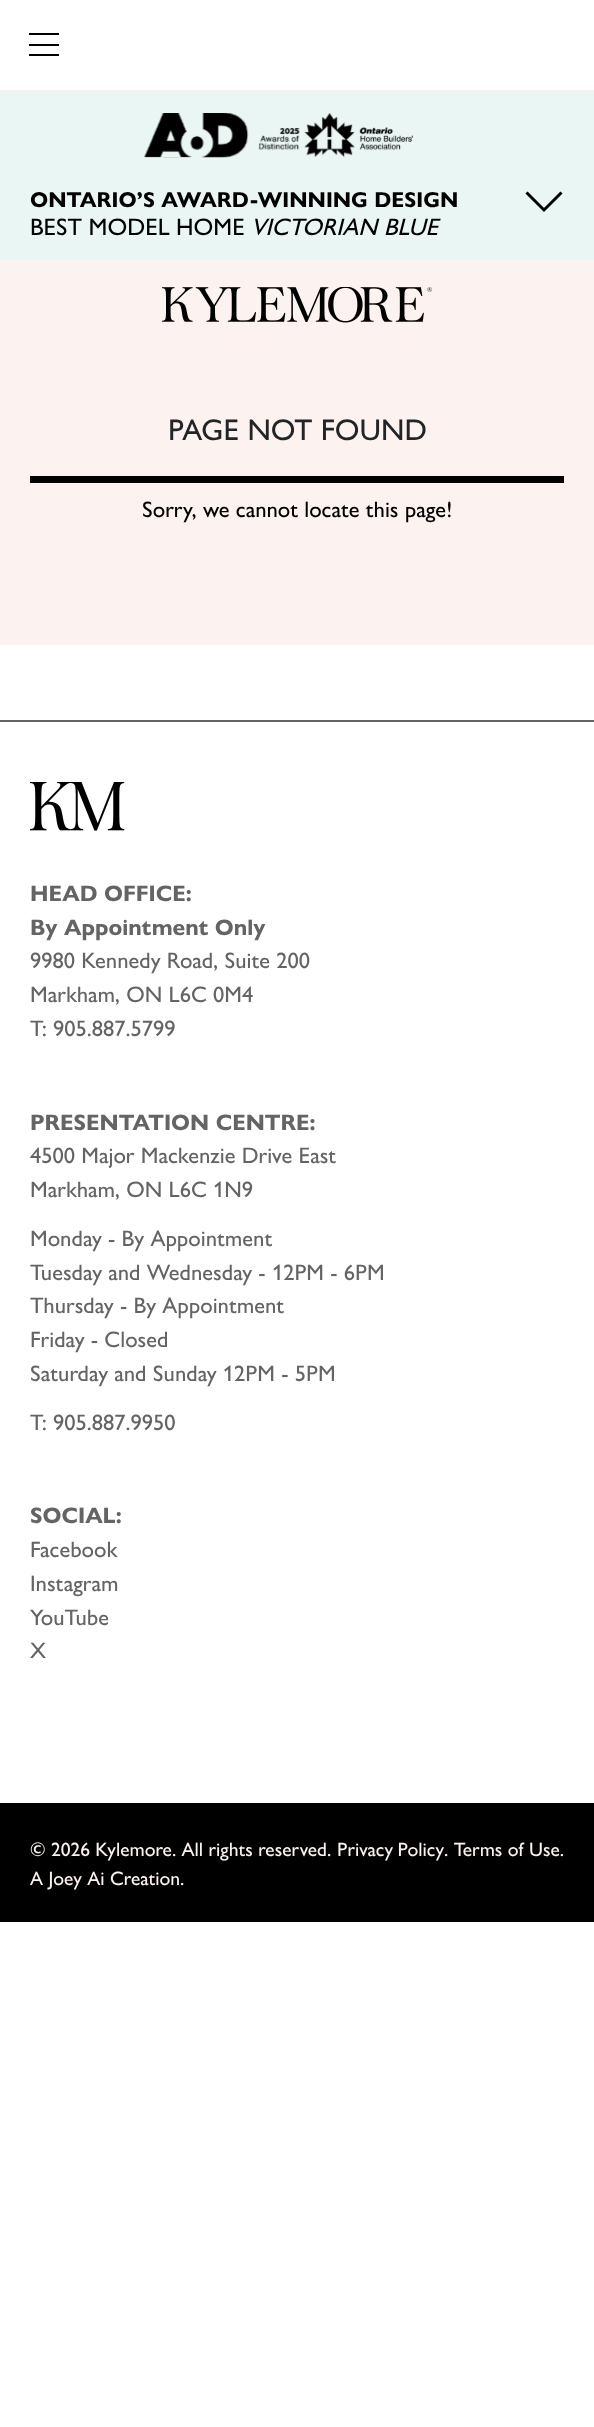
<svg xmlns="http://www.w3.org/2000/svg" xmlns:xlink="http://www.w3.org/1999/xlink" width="594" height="2427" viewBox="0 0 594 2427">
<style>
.cls-1{font:bold 21.6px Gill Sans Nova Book;fill:#000000}
.cls-2{font:500 24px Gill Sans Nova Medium;fill:#000000}
.cls-3{font:italic 500 24px Gill Sans Nova Medium;fill:#000000}
.cls-4{font:500 30px Gill Sans Nova Medium;fill:#212529}
.cls-5{font:500 22.5px Gill Sans Nova Medium;fill:#000000}
.cls-6{font:bold 22.5px Gill Sans Nova Book;fill:#646464}
.cls-7{font:500 22.5px Gill Sans Nova Medium;fill:#646464}
.cls-8{font:500 19.5px Gill Sans Nova Medium;fill:#fcf2ef}
</style>
<rect width="100%" height="100%" fill="#ffffff"/>
<rect fill="#e9f6f3" x="0" y="90" width="594" height="170"/>
<image xlink:href="image0.png" x="144" y="113" width="270" height="45"/>
<path fill="none" stroke="#000000" stroke-width="3" d="M561.5 192.5L544 210L526.5 192.5"/>
<rect fill="#000000" x="29" y="33" width="30" height="2"/>
<rect fill="#000000" x="29" y="44" width="30" height="2"/>
<rect fill="#000000" x="29" y="54" width="30" height="2"/>
<rect fill="#fcf2ef" x="0" y="260" width="594" height="385"/>
<image xlink:href="image1.png" x="162" y="287" width="270" height="36"/>
<rect fill="#000000" x="30" y="476" width="534" height="7"/>
<rect fill="#646464" x="0" y="720" width="594" height="2"/>
<image xlink:href="image2.png" x="30" y="782" width="95" height="49"/>
<rect fill="#000000" x="0" y="1803" width="594" height="119"/>
<text class="cls-1" x="30" y="207">ONTARIO’S AWARD-WINNING DESIGN</text>
<text class="cls-2" x="30" y="235">BEST MODEL HOME</text>
<text class="cls-3" x="251" y="235">VICTORIAN BLUE</text>
<text class="cls-4" x="168" y="440">PAGE NOT FOUND</text>
<text class="cls-5" x="142" y="517">Sorry, we cannot locate this page!</text>
<text class="cls-6"><tspan x="30" y="901">HEAD OFFICE:</tspan><tspan x="30" y="935">By Appointment Only</tspan></text>
<text class="cls-7"><tspan x="30" y="968">9980 Kennedy Road, Suite 200</tspan><tspan x="30" y="1002">Markham, ON L6C 0M4</tspan><tspan x="30" y="1036">T: 905.887.5799</tspan></text>
<text class="cls-6" x="30" y="1130">PRESENTATION CENTRE:</text>
<text class="cls-7"><tspan x="30" y="1163">4500 Major Mackenzie Drive East</tspan><tspan x="30" y="1197">Markham, ON L6C 1N9</tspan></text>
<text class="cls-7"><tspan x="30" y="1246">Monday - By Appointment</tspan><tspan x="30" y="1280">Tuesday and Wednesday - 12PM - 6PM</tspan><tspan x="30" y="1313">Thursday - By Appointment</tspan><tspan x="30" y="1347">Friday - Closed</tspan><tspan x="30" y="1381">Saturday and Sunday 12PM - 5PM</tspan></text>
<text class="cls-7" x="30" y="1430">T: 905.887.9950</text>
<text class="cls-6" x="30" y="1523">SOCIAL:</text>
<text class="cls-7"><tspan x="30" y="1557">Facebook</tspan><tspan x="30" y="1591">Instagram</tspan><tspan x="30" y="1625">YouTube</tspan><tspan x="30" y="1658">X</tspan></text>
<text class="cls-8" x="30" y="1856">© 2026 Kylemore. All rights reserved.</text>
<text class="cls-8" x="337" y="1856" word-spacing="-1">Privacy Policy</text>
<text class="cls-8" x="444" y="1856">. Terms of Use.</text>
<text class="cls-8" x="30" y="1885">A Joey Ai Creation.</text>
</svg>
